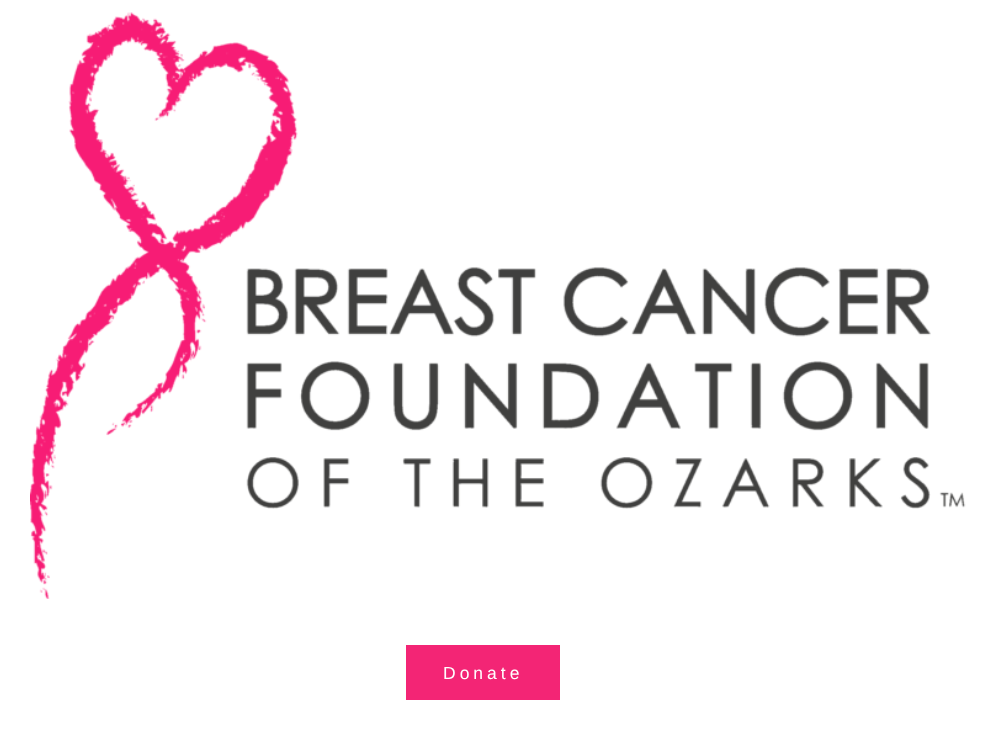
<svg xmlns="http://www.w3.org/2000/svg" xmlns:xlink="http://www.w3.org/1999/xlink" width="1006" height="736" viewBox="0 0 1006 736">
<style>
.cls-1{font:17.5px Liberation Sans;letter-spacing:4px;fill:#ffffff}
</style>
<rect width="100%" height="100%" fill="#ffffff"/>
<image xlink:href="image0.png" x="30" y="12" width="936" height="587"/>
<rect fill="#f32575" x="406" y="645" width="154" height="55"/>
<text class="cls-1" x="443" y="679">Donate</text>
</svg>
